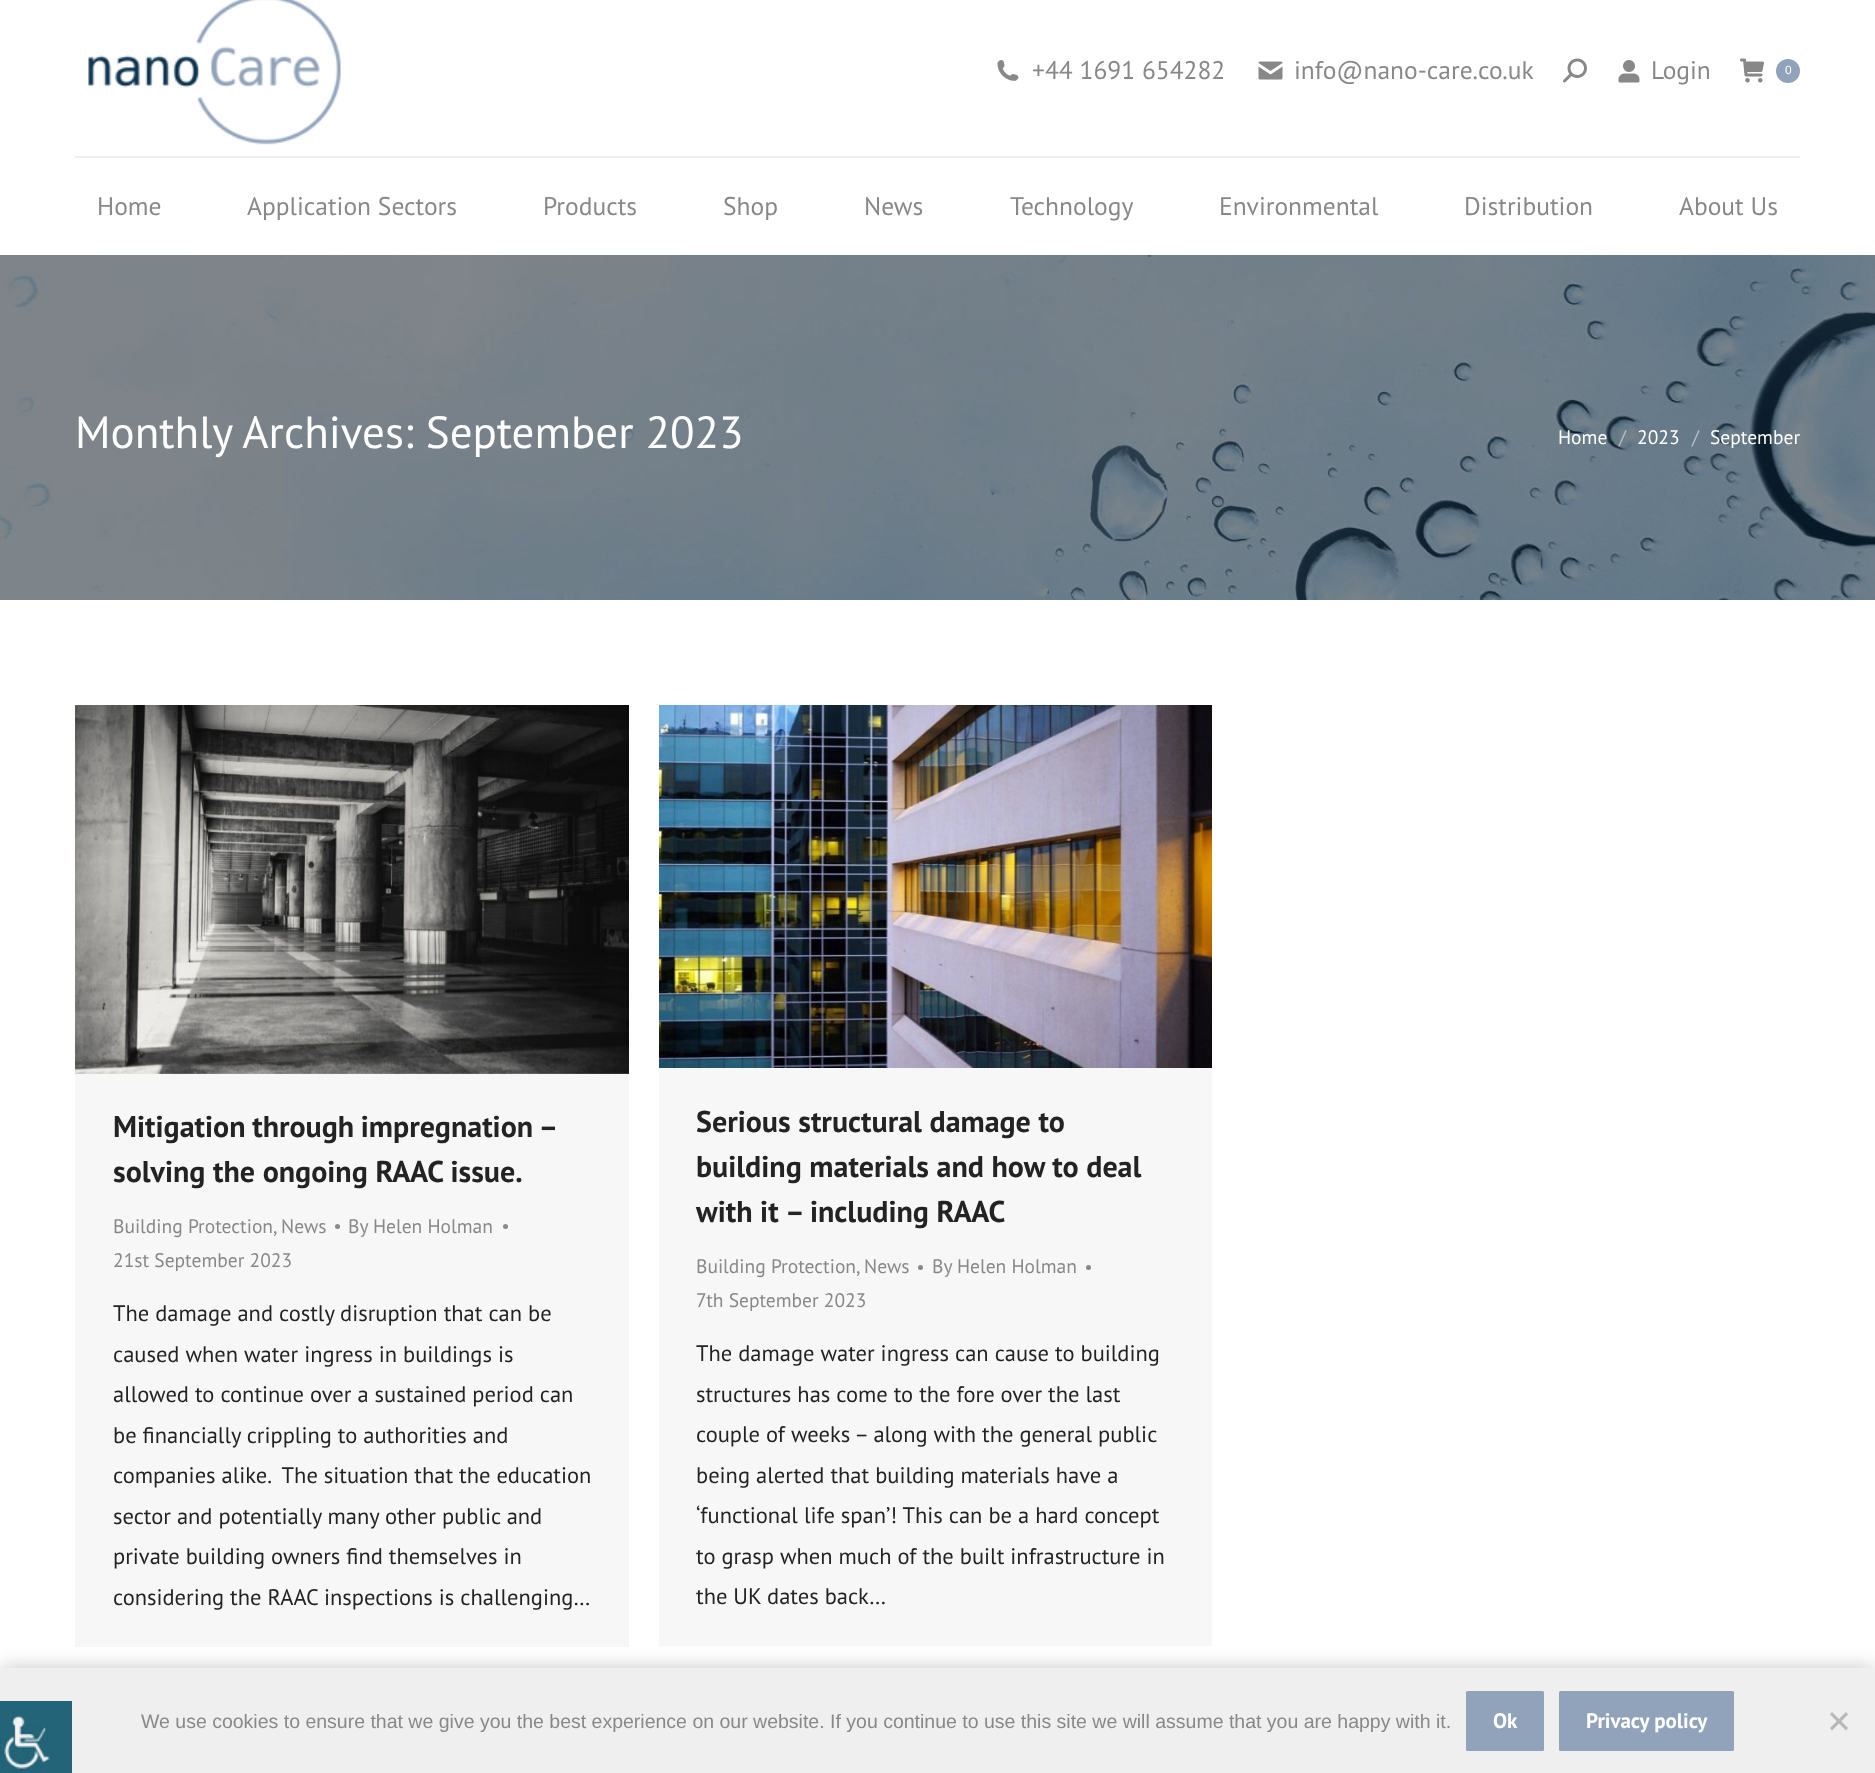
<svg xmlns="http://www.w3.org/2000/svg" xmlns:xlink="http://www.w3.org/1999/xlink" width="1875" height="1773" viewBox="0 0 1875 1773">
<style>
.cls-1{font:25.5px PT Sans;fill:#888888}
.cls-2{font:12px Liberation Sans;fill:#ffffff}
.cls-3{font:45px PT Sans;fill:#ffffff}
.cls-4{font:19.5px PT Sans;fill:#ffffff}
.cls-5{font:19.5px PT Sans;fill:#b5bdc3}
.cls-6{font:bold 30px PT Sans;fill:#232323}
.cls-7{font:19.5px PT Sans;fill:#888888}
.cls-8{font:22.5px PT Sans;fill:#232323}
.cls-9{font:19.5px Liberation Sans;fill:#888888}
.cls-10{font:bold 21px PT Sans;fill:#ffffff}
</style>
<rect width="100%" height="100%" fill="#ffffff"/>
<image xlink:href="image0.png" x="88" y="0" width="253" height="145"/>
<image xlink:href="image1.png" x="997" y="60" width="22" height="21"/>
<image xlink:href="image2.png" x="1258" y="61" width="25" height="19"/>
<image xlink:href="image3.png" x="1563" y="58" width="24" height="25"/>
<image xlink:href="image4.png" x="1618" y="60" width="22" height="23"/>
<image xlink:href="image5.png" x="1740" y="58" width="24" height="25"/>
<circle fill="#91a3bb" cx="1788" cy="71" r="12"/>
<rect fill="#eeeeee" x="75" y="156" width="1725" height="2"/>
<image xlink:href="image6.png" x="0" y="255" width="1875" height="345"/>
<rect fill="#f7f7f7" x="75" y="1073" width="554" height="574"/>
<image xlink:href="image7.png" x="75" y="705" width="554" height="369"/>
<circle fill="#888888" cx="337.5" cy="1226.5" r="2.5"/>
<circle fill="#888888" cx="505.5" cy="1226.5" r="2.5"/>
<rect fill="#f7f7f7" x="659" y="1068" width="553" height="578"/>
<image xlink:href="image8.png" x="659" y="705" width="553" height="363"/>
<circle fill="#888888" cx="920.5" cy="1267.5" r="2.5"/>
<circle fill="#888888" cx="1088.5" cy="1267.5" r="2.5"/>
<rect fill="#cccccc" filter="blur(10px)" x="0" y="1667" width="1875" height="105"/>
<rect fill="#efefef" x="0" y="1668" width="1875" height="105"/>
<image xlink:href="image9.png" x="0" y="1701" width="72" height="72"/>
<rect fill="#91a3bb" x="1466" y="1691" width="78" height="60" rx="1.5"/>
<rect fill="#91a3bb" x="1559" y="1691" width="175" height="60" rx="1.5"/>
<path fill="#b8b8b8" d="M1846 1712L1848 1714.5L1832 1730.5L1830 1728Z"/>
<path fill="#b8b8b8" d="M1830 1714.5L1832 1712L1848 1728L1846 1730.5Z"/>
<text class="cls-1" x="1032" y="79">+44 1691 654282</text>
<text class="cls-1" x="1294" y="79">info@nano-care.co.uk</text>
<text class="cls-1" x="1651" y="79">Login</text>
<text class="cls-2" x="1785" y="74">0</text>
<text class="cls-1" x="97" y="215">Home</text>
<text class="cls-1" x="247" y="215">Application Sectors</text>
<text class="cls-1" x="543" y="215">Products</text>
<text class="cls-1" x="723" y="215">Shop</text>
<text class="cls-1" x="864" y="215">News</text>
<text class="cls-1" x="1010" y="215">Technology</text>
<text class="cls-1" x="1219" y="215">Environmental</text>
<text class="cls-1" x="1464" y="215">Distribution</text>
<text class="cls-1" x="1679" y="215">About Us</text>
<text class="cls-3" x="75" y="448">Monthly Archives: September 2023</text>
<text class="cls-4" x="1558" y="444">Home</text>
<text class="cls-5" x="1619" y="444">/</text>
<text class="cls-4" x="1637" y="444">2023</text>
<text class="cls-5" x="1692" y="444">/</text>
<text class="cls-4" x="1710" y="444">September</text>
<text class="cls-6"><tspan x="113" y="1137" word-spacing="-1">Mitigation through impregnation –</tspan><tspan x="113" y="1182">solving the ongoing RAAC issue.</tspan></text>
<text class="cls-7" x="113" y="1233">Building Protection, News</text>
<text class="cls-7" x="348" y="1233">By Helen Holman</text>
<text class="cls-7" x="113" y="1267">21st September 2023</text>
<text class="cls-8" xml:space="preserve"><tspan x="113" y="1321">The damage and costly disruption that can be</tspan><tspan x="113" y="1362">caused when water ingress in buildings is</tspan><tspan x="113" y="1402">allowed to continue over a sustained period can</tspan><tspan x="113" y="1443">be financially crippling to authorities and</tspan><tspan x="113" y="1483">companies alike.  The situation that the education</tspan><tspan x="113" y="1524">sector and potentially many other public and</tspan><tspan x="113" y="1564">private building owners find themselves in</tspan><tspan x="113" y="1605">considering the RAAC inspections is challenging…</tspan></text>
<text class="cls-6"><tspan x="696" y="1132">Serious structural damage to</tspan><tspan x="696" y="1177">building materials and how to deal</tspan><tspan x="696" y="1222">with it – including RAAC</tspan></text>
<text class="cls-7" x="696" y="1273">Building Protection, News</text>
<text class="cls-7" x="932" y="1273">By Helen Holman</text>
<text class="cls-7" x="696" y="1307">7th September 2023</text>
<text class="cls-8"><tspan x="696" y="1361">The damage water ingress can cause to building</tspan><tspan x="696" y="1402">structures has come to the fore over the last</tspan><tspan x="696" y="1442">couple of weeks – along with the general public</tspan><tspan x="696" y="1483">being alerted that building materials have a</tspan><tspan x="696" y="1523">‘functional life span’! This can be a hard concept</tspan><tspan x="696" y="1564">to grasp when much of the built infrastructure in</tspan><tspan x="696" y="1604">the UK dates back…</tspan></text>
<text class="cls-9" x="141" y="1728">We use cookies to ensure that we give you the best experience on our website. If you continue to use this site we will assume that you are happy with it.</text>
<text class="cls-10" x="1493" y="1728">Ok</text>
<text class="cls-10" x="1586" y="1728">Privacy policy</text>
</svg>
